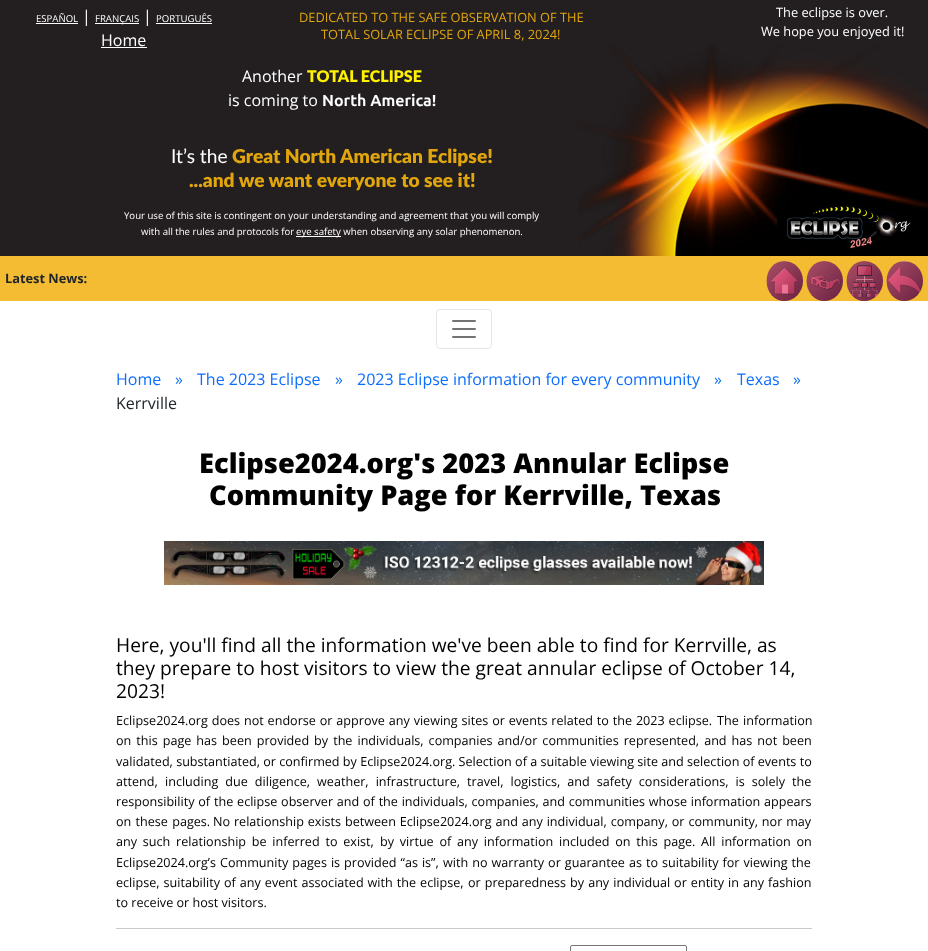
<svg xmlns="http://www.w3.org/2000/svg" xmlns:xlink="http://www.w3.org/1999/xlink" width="928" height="951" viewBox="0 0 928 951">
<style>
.cls-1{font:9.6px Open Sans;fill:#ffffff}
.cls-2{font:16px Open Sans;fill:#ffffff}
.cls-3{font:12.8px Open Sans;fill:#e1a50d}
.cls-4{font:12.8px Open Sans;fill:#ffffff}
.cls-5{font:900 16px Lato;fill:#fff200}
.cls-6{font:bold 16px Ubuntu;fill:#ffffff}
.cls-7{font:19.2px Lato;fill:#ffffff}
.cls-8{font:900 19.2px Lato;fill:#e1a50d}
.cls-9{font:bold 12.8px Open Sans;fill:#212529}
.cls-10{font:16px Open Sans;fill:#0d6efd}
.cls-11{font:16px Open Sans;fill:#212529}
.cls-12{font:800 27.25px Open Sans;fill:#000000}
.cls-13{font:19.2px Open Sans;fill:#000000}
.cls-14{font:12.6px Open Sans;fill:#000000}
</style>
<rect width="100%" height="100%" fill="#ffffff"/>
<rect fill="#231f20" x="0" y="0" width="928" height="256"/>
<image xlink:href="image0.png" x="578" y="43" width="350" height="213"/>
<rect fill="#ffffff" x="36" y="23" width="42" height="1"/>
<rect fill="#ffffff" x="95" y="23" width="44" height="1"/>
<rect fill="#ffffff" x="156" y="23" width="56" height="1"/>
<rect fill="#ffffff" x="101" y="47" width="46" height="1"/>
<rect fill="#ffffff" x="296" y="236" width="45" height="1"/>
<rect fill="#f3bc33" x="0" y="256" width="928" height="45"/>
<image xlink:href="image1.png" x="766" y="261" width="37" height="40"/>
<image xlink:href="image2.png" x="806" y="261" width="37" height="40"/>
<image xlink:href="image3.png" x="846" y="261" width="37" height="40"/>
<image xlink:href="image4.png" x="886" y="261" width="37" height="40"/>
<rect fill="none" stroke="#e6e6e6" x="436.5" y="309.5" width="55" height="39" rx="3.5"/>
<image xlink:href="image5.png" x="452" y="320" width="24" height="18"/>
<image xlink:href="image6.png" x="164" y="541" width="600" height="44"/>
<rect fill="#c8c9ca" x="116" y="928" width="696" height="1"/>
<rect fill="none" stroke="#767676" x="570.5" y="945.5" width="116" height="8" rx="1.5"/>
<text class="cls-1" x="36" y="22">ESPAÑOL</text>
<text class="cls-2" x="82" y="22">|</text>
<text class="cls-1" x="95" y="22">FRANÇAIS</text>
<text class="cls-2" x="143" y="22">|</text>
<text class="cls-1" x="156" y="22">PORTUGUÊS</text>
<text class="cls-2" x="101" y="46">Home</text>
<text class="cls-3" x="299" y="22">DEDICATED TO THE SAFE OBSERVATION OF THE</text>
<text class="cls-3" x="321" y="39">TOTAL SOLAR ECLIPSE OF APRIL 8, 2024!</text>
<text class="cls-4" x="776" y="17">The eclipse is over.</text>
<text class="cls-4" x="761" y="36">We hope you enjoyed it!</text>
<text class="cls-2" x="242" y="82">Another</text>
<text class="cls-5" x="307" y="82">TOTAL ECLIPSE</text>
<text class="cls-2" x="228" y="106">is coming to</text>
<text class="cls-6" x="322" y="106">North America!</text>
<text class="cls-7" x="171" y="163">It’s the</text>
<text class="cls-8" x="232" y="163">Great North American Eclipse!</text>
<text class="cls-8" x="189" y="187">...and we want everyone to see it!</text>
<text class="cls-1" x="124" y="219">Your use of this site is contingent on your understanding and agreement that you will comply</text>
<text class="cls-1" x="141" y="235">with all the rules and protocols for</text>
<text class="cls-1" x="296" y="235">eye safety when observing any solar phenomenon.</text>
<text class="cls-9" x="5" y="283">Latest News:</text>
<text class="cls-10" x="116" y="385">Home</text>
<text class="cls-10" x="175" y="385">»</text>
<text class="cls-10" x="197" y="385">The 2023 Eclipse</text>
<text class="cls-10" x="335" y="385">»</text>
<text class="cls-10" x="357" y="385">2023 Eclipse information for every community</text>
<text class="cls-10" x="714" y="385">»</text>
<text class="cls-10" x="737" y="385">Texas</text>
<text class="cls-10" x="793" y="385">»</text>
<text class="cls-11" x="116" y="409">Kerrville</text>
<text class="cls-12" x="199" y="473">Eclipse2024.org's 2023 Annular Eclipse</text>
<text class="cls-12" x="209" y="505">Community Page for Kerrville, Texas</text>
<text class="cls-13"><tspan x="116" y="652">Here, you'll find all the information we've been able to find for Kerrville, as</tspan><tspan x="116" y="675">they prepare to host visitors to view the great annular eclipse of October 14,</tspan><tspan x="116" y="698">2023!</tspan></text>
<text class="cls-14" x="116" y="725" word-spacing="0.6">Eclipse2024.org does not endorse or approve any viewing sites or events related to the 2023 eclipse.</text>
<text class="cls-14" x="717" y="725" word-spacing="1">The information</text>
<text class="cls-14"><tspan x="116" y="745" word-spacing="1.75">on this page has been provided by the individuals, companies and/or communities represented, and has not been</tspan><tspan x="116" y="766">validated, substantiated, or confirmed by Eclipse2024.org. Selection of a suitable viewing site and selection of events to</tspan><tspan x="116" y="786">attend,</tspan></text>
<text class="cls-14" x="165" y="786" word-spacing="3.75">including due diligence, weather, infrastructure, travel, logistics, and safety considerations, is solely the</text>
<text class="cls-14" x="116" y="806" word-spacing="0.5">responsibility of</text>
<text class="cls-14" x="214" y="806" word-spacing="0.5">the eclipse observer and of the individuals, companies, and communities whose information appears</text>
<text class="cls-14" x="116" y="826" word-spacing="1">on these pages.</text>
<text class="cls-14" x="213" y="826" word-spacing="0.6">No relationship exists between Eclipse2024.org and any individual, company, or community, nor may</text>
<text class="cls-14" x="116" y="846" word-spacing="2.5">any such relationship be inferred to exist,</text>
<text class="cls-14" x="380" y="846" word-spacing="2.5">by virtue of any information included on this page. All information on</text>
<text class="cls-14" x="116" y="867" word-spacing="0.75">Eclipse2024.org’s Community pages is provided “as is”,</text>
<text class="cls-14" x="443" y="867" word-spacing="0.75">with no warranty or guarantee as to suitability for viewing the</text>
<text class="cls-14" x="116" y="887" word-spacing="0.75">eclipse, suitability of any event associated with the eclipse,</text>
<text class="cls-14" x="468" y="887" word-spacing="0.75">or preparedness by any individual or entity in any fashion</text>
<text class="cls-14" x="116" y="907">to receive or host visitors.</text>
</svg>
